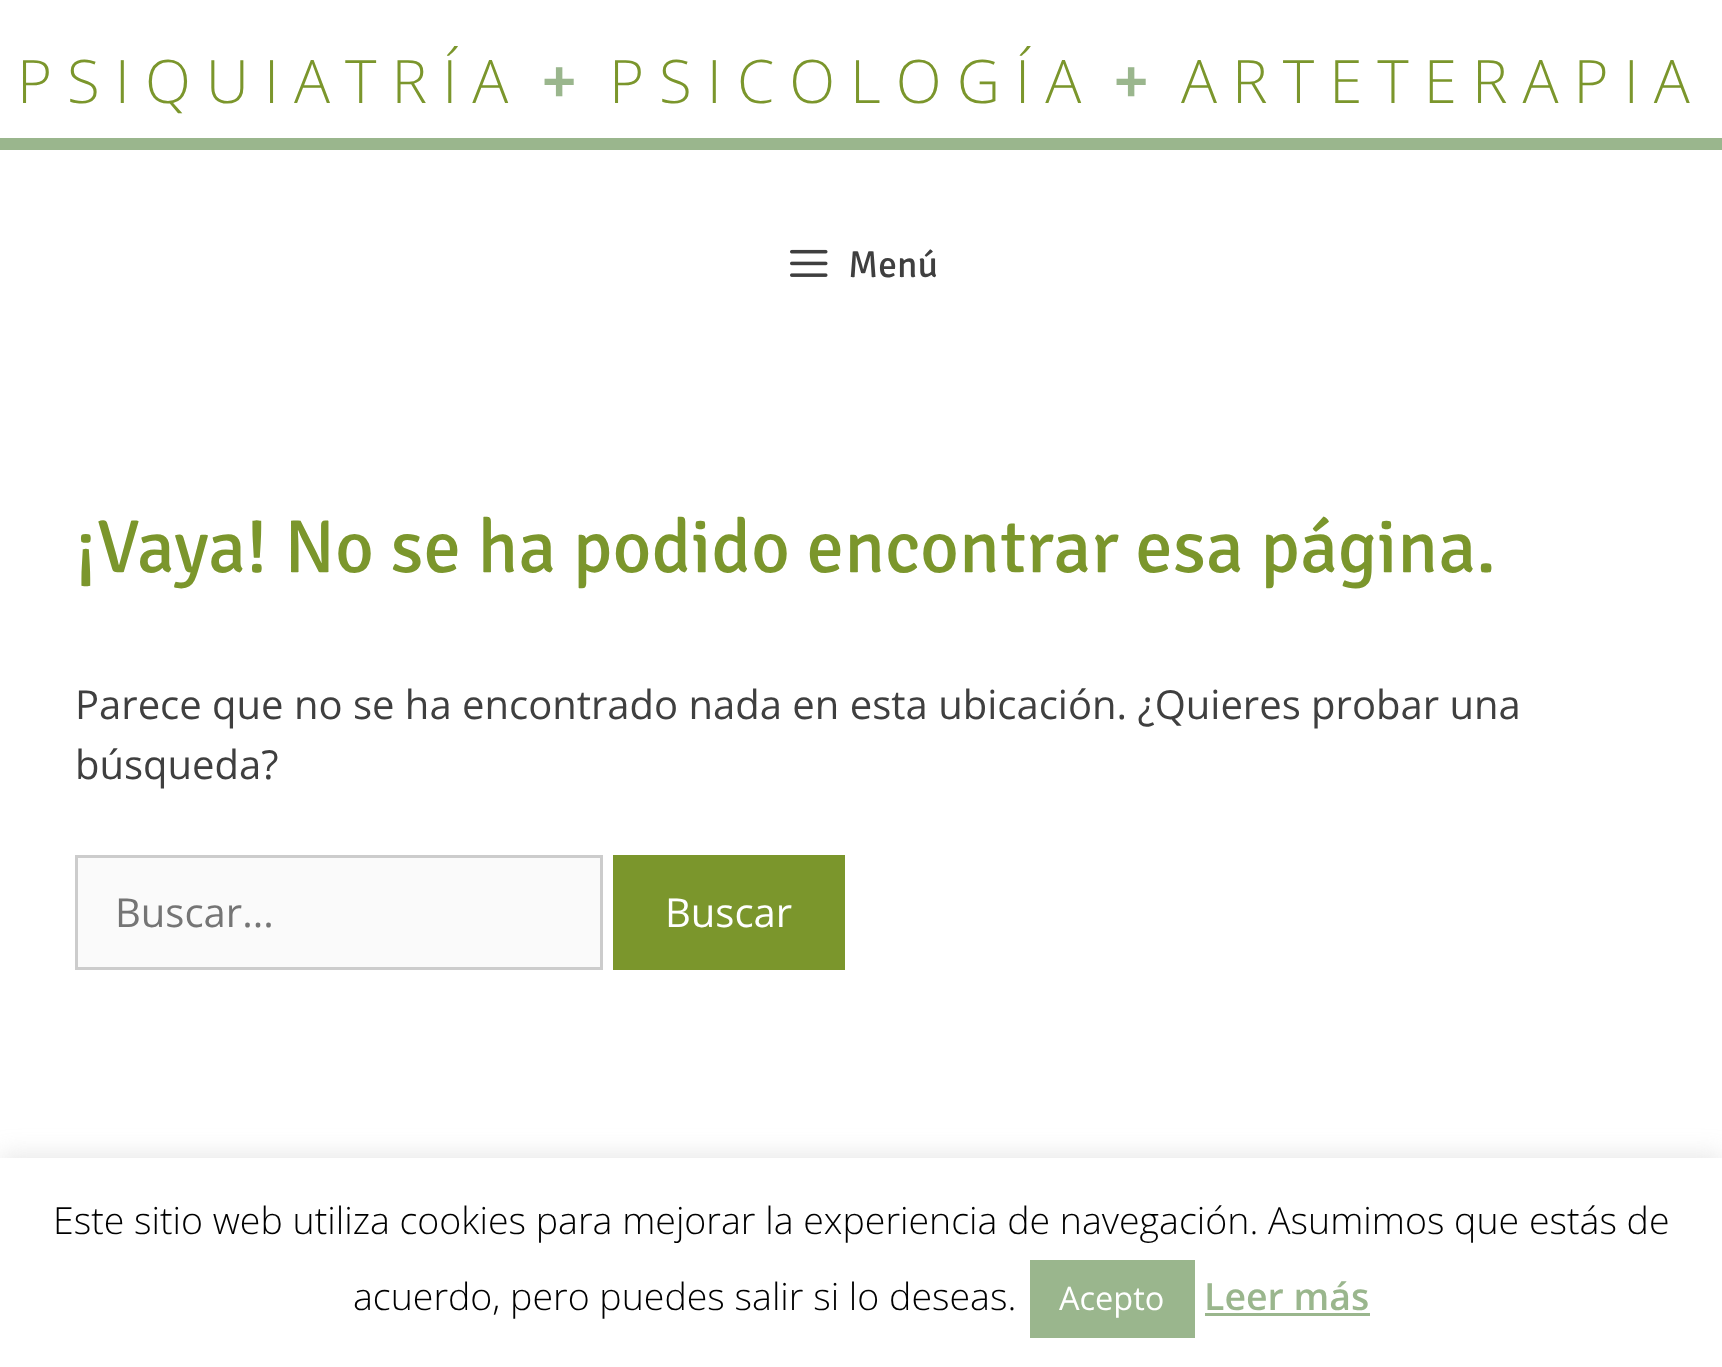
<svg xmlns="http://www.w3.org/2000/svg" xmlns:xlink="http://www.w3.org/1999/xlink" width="1722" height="1367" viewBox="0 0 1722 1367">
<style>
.cls-1{font:300 60px Open Sans;letter-spacing:15px;fill:#7b962c}
.cls-2{font:bold 60px Open Sans;letter-spacing:15px;fill:#9ab68d}
.cls-3{font:37.5px Signika;fill:#3f3f3f}
.cls-4{font:75px Signika;fill:#7b962c}
.cls-5{font:40px Open Sans;fill:#3f3f3f}
.cls-6{font:40px Open Sans;fill:#757575}
.cls-7{font:40px Open Sans;fill:#ffffff}
.cls-8{font:300 37.5px Open Sans;fill:#000000}
.cls-9{font:32.5px Open Sans;fill:#ffffff}
.cls-10{font:600 37.5px Open Sans;fill:#9ab68d}
</style>
<rect width="100%" height="100%" fill="#ffffff"/>
<rect fill="#9ab68d" x="0" y="138" width="1722" height="12"/>
<image xlink:href="image0.png" x="790" y="249" width="38" height="28"/>
<rect fill="#fafafa" stroke="#cccccc" stroke-width="3" x="76.5" y="856.5" width="525" height="112"/>
<rect fill="#7b962c" x="613" y="855" width="232" height="115"/>
<rect fill="#acabab" fill-opacity="0.3" filter="blur(12.5px)" x="0" y="1155" width="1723" height="210"/>
<rect fill="#ffffff" x="0" y="1158" width="1722" height="209"/>
<rect fill="#9ab68d" x="1030" y="1260" width="165" height="78"/>
<rect fill="#9ab68d" x="1205" y="1313" width="165" height="3"/>
<text class="cls-1" x="17" y="103">PSIQUIATRÍA</text>
<text class="cls-2" x="542" y="103">+</text>
<text class="cls-1" x="609" y="103">PSICOLOGÍA</text>
<text class="cls-2" x="1114" y="103">+</text>
<text class="cls-1" x="1181" y="103">ARTETERAPIA</text>
<text class="cls-3" x="848" y="277">Menú</text>
<text class="cls-4" x="75" y="572">¡Vaya! No se ha podido encontrar esa página.</text>
<text class="cls-5"><tspan x="75" y="719">Parece que no se ha encontrado nada en esta ubicación. ¿Quieres probar una</tspan><tspan x="75" y="779">búsqueda?</tspan></text>
<text class="cls-6" x="115" y="927">Buscar...</text>
<text class="cls-7" x="665" y="927">Buscar</text>
<text class="cls-8" x="53" y="1234">Este sitio web utiliza cookies para mejorar la experiencia de navegación. Asumimos que estás de</text>
<text class="cls-8" x="353" y="1310">acuerdo, pero puedes salir si lo deseas.</text>
<text class="cls-9" x="1059" y="1310">Acepto</text>
<text class="cls-10" x="1204" y="1310">Leer más</text>
</svg>
